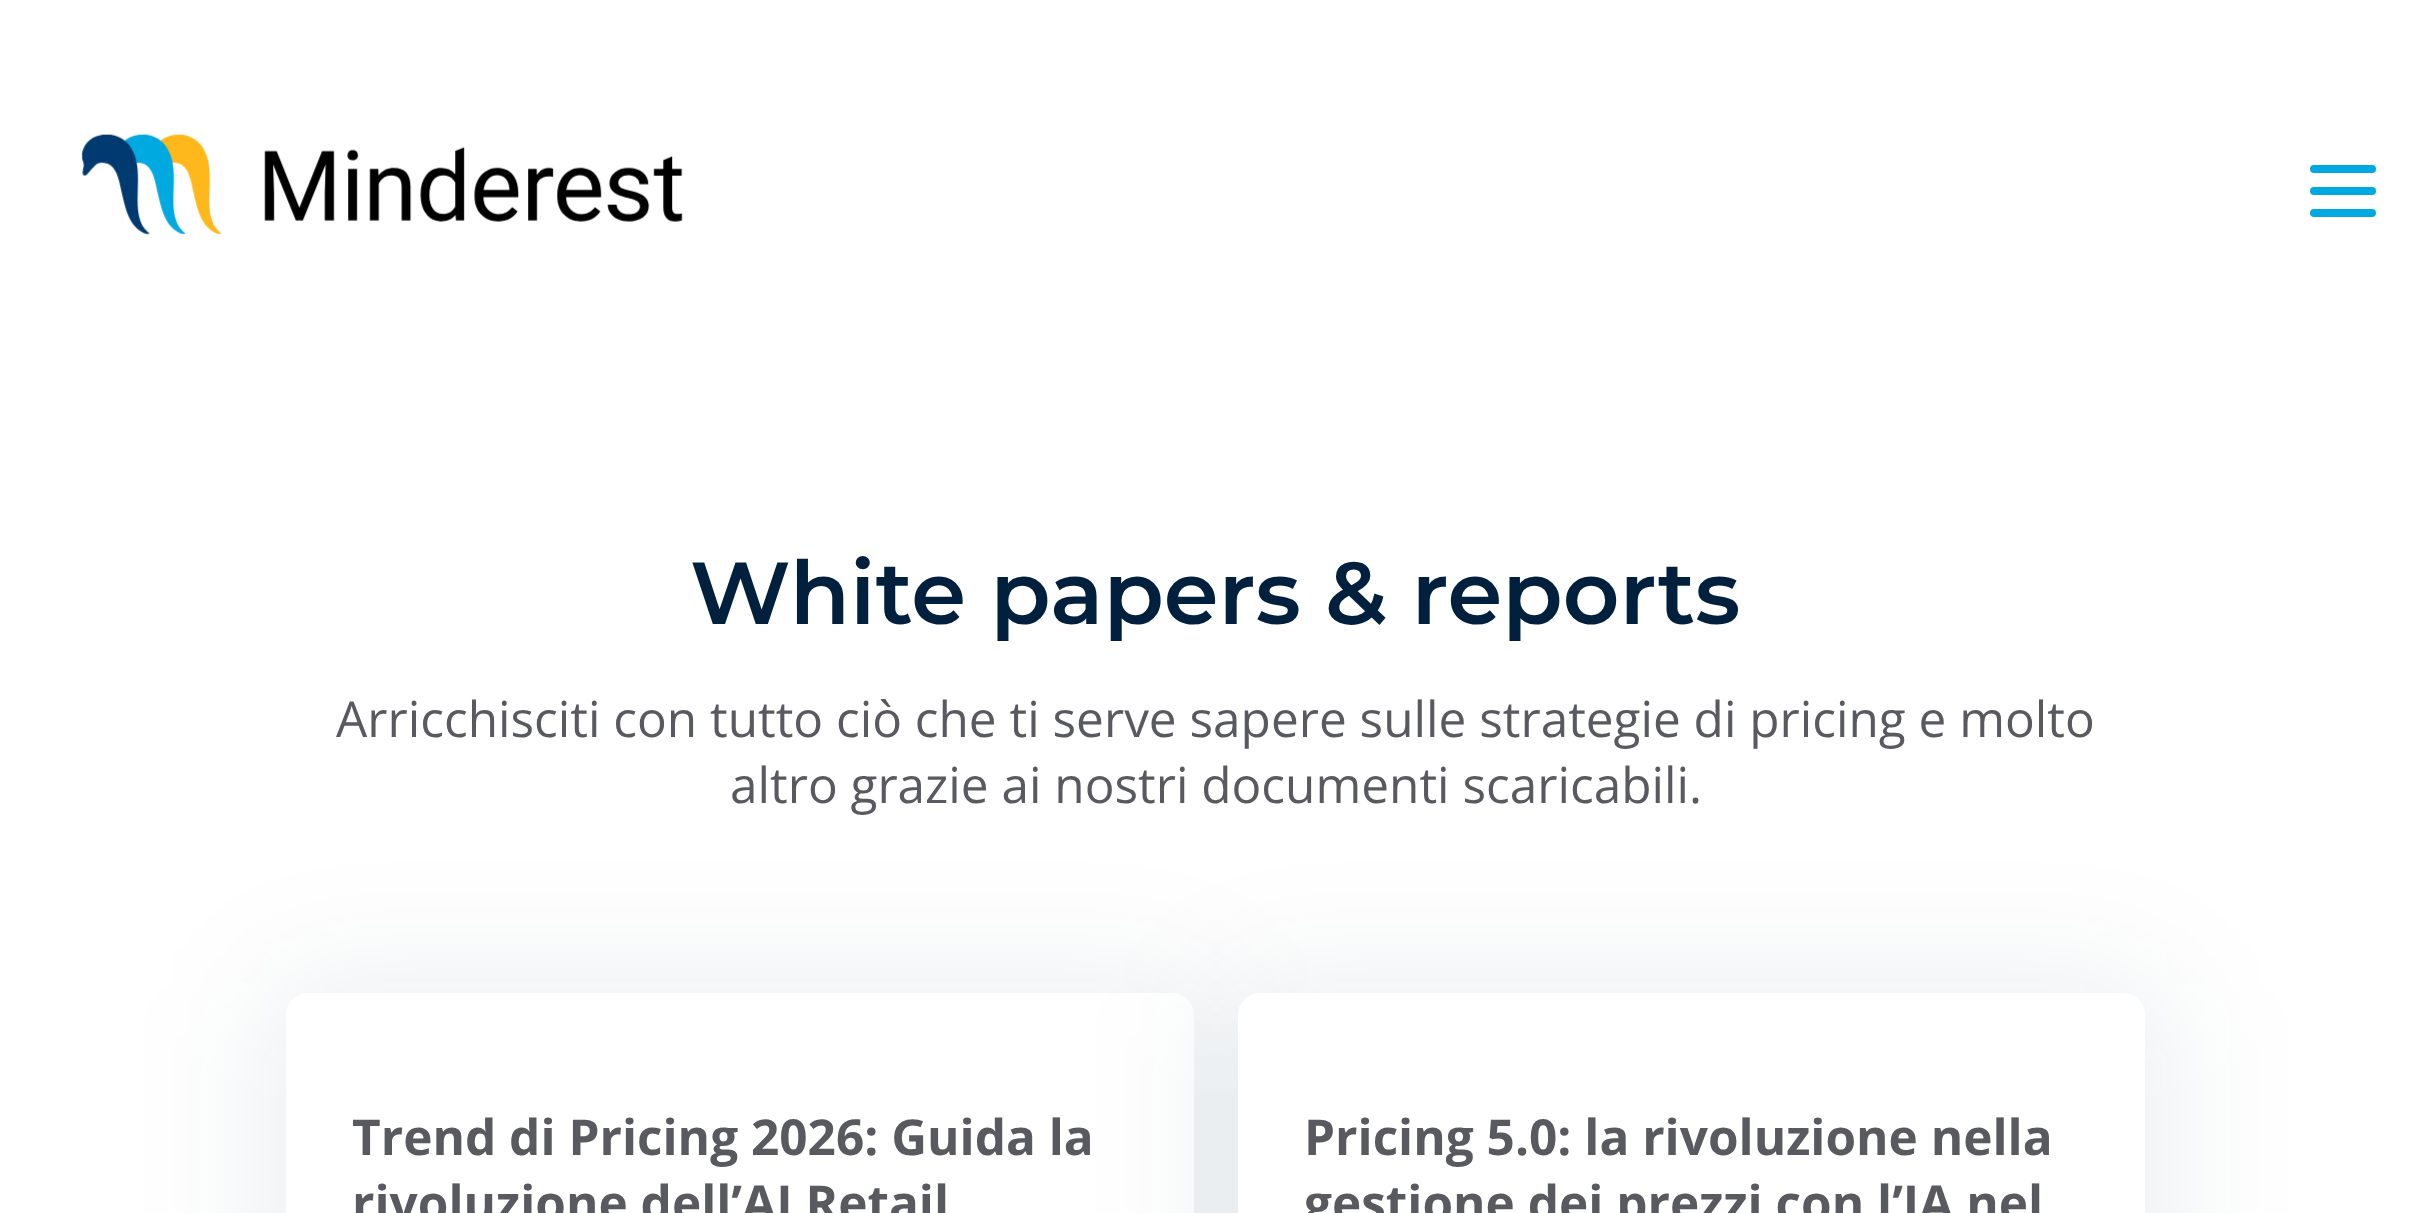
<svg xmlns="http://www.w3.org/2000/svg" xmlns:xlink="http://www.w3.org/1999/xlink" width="2431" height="1213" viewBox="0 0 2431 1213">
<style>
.cls-1{font:100 88px Montserrat;fill:#00203d}
.cls-2{font:49.5px Open Sans;fill:#595a5f}
.cls-3{font:bold 49.5px Open Sans;fill:#595a5f}
</style>
<rect width="100%" height="100%" fill="#ffffff"/>
<image xlink:href="image0.png" x="81" y="134" width="602" height="101"/>
<rect fill="#00a9e0" x="2310" y="165" width="66" height="8" rx="4"/>
<rect fill="#00a9e0" x="2310" y="187" width="66" height="8" rx="4"/>
<rect fill="#00a9e0" x="2310" y="209" width="66" height="8" rx="4"/>
<rect fill="#00203d" fill-opacity="0.08" filter="blur(66px)" x="264" y="982" width="952" height="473" rx="44"/>
<rect fill="#ffffff" x="286" y="993" width="908" height="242" rx="22"/>
<rect fill="#00203d" fill-opacity="0.08" filter="blur(66px)" x="1216" y="982" width="951" height="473" rx="44"/>
<rect fill="#ffffff" x="1238" y="993" width="907" height="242" rx="22"/>
<text class="cls-1" x="690" y="624">White papers &amp; reports</text>
<text class="cls-2" x="336" y="737">Arricchisciti con tutto ciò che ti serve sapere sulle strategie di pricing e molto</text>
<text class="cls-2" x="730" y="803">altro grazie ai nostri documenti scaricabili.</text>
<text class="cls-3"><tspan x="352" y="1155">Trend di Pricing 2026: Guida la</tspan><tspan x="352" y="1221">rivoluzione dell’AI Retail</tspan></text>
<text class="cls-3"><tspan x="1304" y="1155">Pricing 5.0: la rivoluzione nella</tspan><tspan x="1304" y="1221">gestione dei prezzi con l’IA nel</tspan></text>
</svg>
